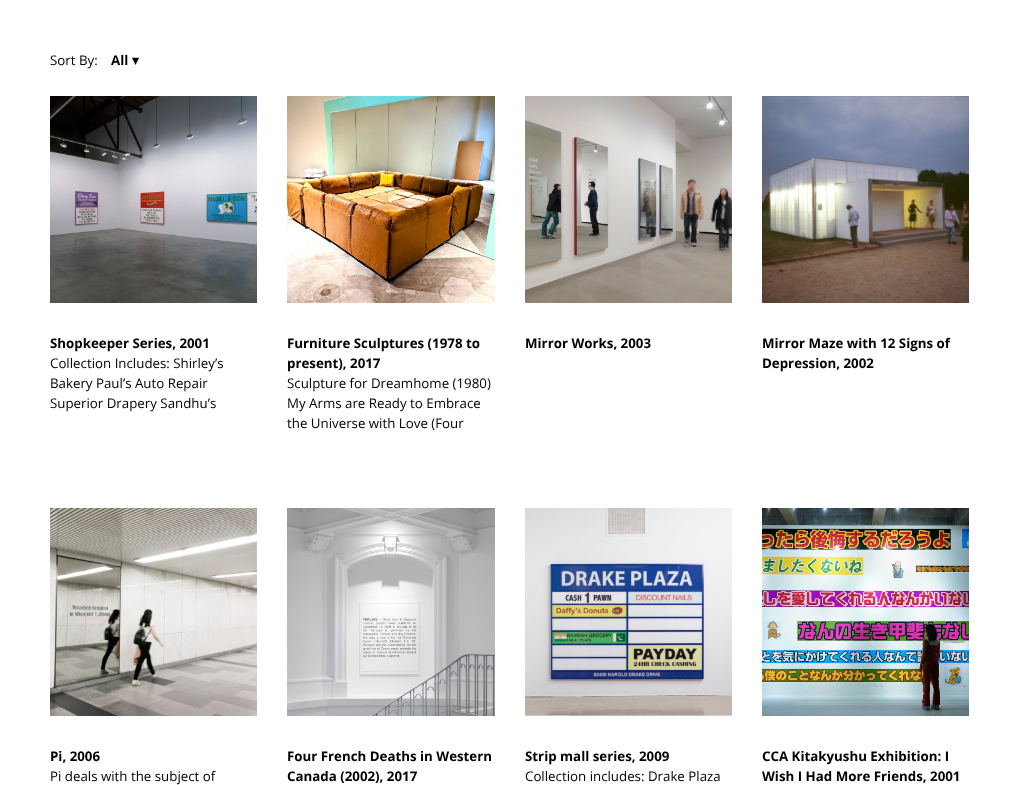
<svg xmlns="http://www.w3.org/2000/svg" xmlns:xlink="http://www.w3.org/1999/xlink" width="1019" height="785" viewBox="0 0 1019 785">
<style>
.cls-1{font:13.3px Open Sans;fill:#000000}
.cls-2{font:bold 13.3px Open Sans;fill:#000000}
.cls-3{font:bold 13.3px DejaVu Sans;fill:#000000}
</style>
<rect width="100%" height="100%" fill="#ffffff"/>
<image xlink:href="image0.png" x="50" y="96" width="207" height="207"/>
<image xlink:href="image1.png" x="287" y="96" width="208" height="207"/>
<image xlink:href="image2.png" x="525" y="96" width="207" height="207"/>
<image xlink:href="image3.png" x="762" y="96" width="207" height="207"/>
<image xlink:href="image4.png" x="50" y="508" width="207" height="208"/>
<image xlink:href="image5.png" x="287" y="508" width="208" height="208"/>
<image xlink:href="image6.png" x="525" y="508" width="207" height="208"/>
<image xlink:href="image7.png" x="762" y="508" width="207" height="208"/>
<text class="cls-1" x="50" y="65">Sort By:</text>
<text class="cls-2" x="111" y="65">All</text>
<text class="cls-3" x="132" y="65">▾</text>
<text class="cls-2" x="50" y="348">Shopkeeper Series, 2001</text>
<text class="cls-1"><tspan x="50" y="368">Collection Includes: Shirley’s</tspan><tspan x="50" y="388">Bakery Paul’s Auto Repair</tspan><tspan x="50" y="408">Superior Drapery Sandhu’s</tspan></text>
<text class="cls-2"><tspan x="287" y="348">Furniture Sculptures (1978 to</tspan><tspan x="287" y="368">present), 2017</tspan></text>
<text class="cls-1"><tspan x="287" y="388">Sculpture for Dreamhome (1980)</tspan><tspan x="287" y="408">My Arms are Ready to Embrace</tspan><tspan x="287" y="428">the Universe with Love (Four</tspan></text>
<text class="cls-2" x="525" y="348">Mirror Works, 2003</text>
<text class="cls-2"><tspan x="762" y="348">Mirror Maze with 12 Signs of</tspan><tspan x="762" y="368">Depression, 2002</tspan></text>
<text class="cls-2" x="50" y="761">Pi, 2006</text>
<text class="cls-1" x="50" y="781">Pi deals with the subject of</text>
<text class="cls-2"><tspan x="287" y="761">Four French Deaths in Western</tspan><tspan x="287" y="781">Canada (2002), 2017</tspan></text>
<text class="cls-2" x="525" y="761">Strip mall series, 2009</text>
<text class="cls-1" x="525" y="781">Collection includes: Drake Plaza</text>
<text class="cls-2"><tspan x="762" y="761">CCA Kitakyushu Exhibition: I</tspan><tspan x="762" y="781">Wish I Had More Friends, 2001</tspan></text>
</svg>
